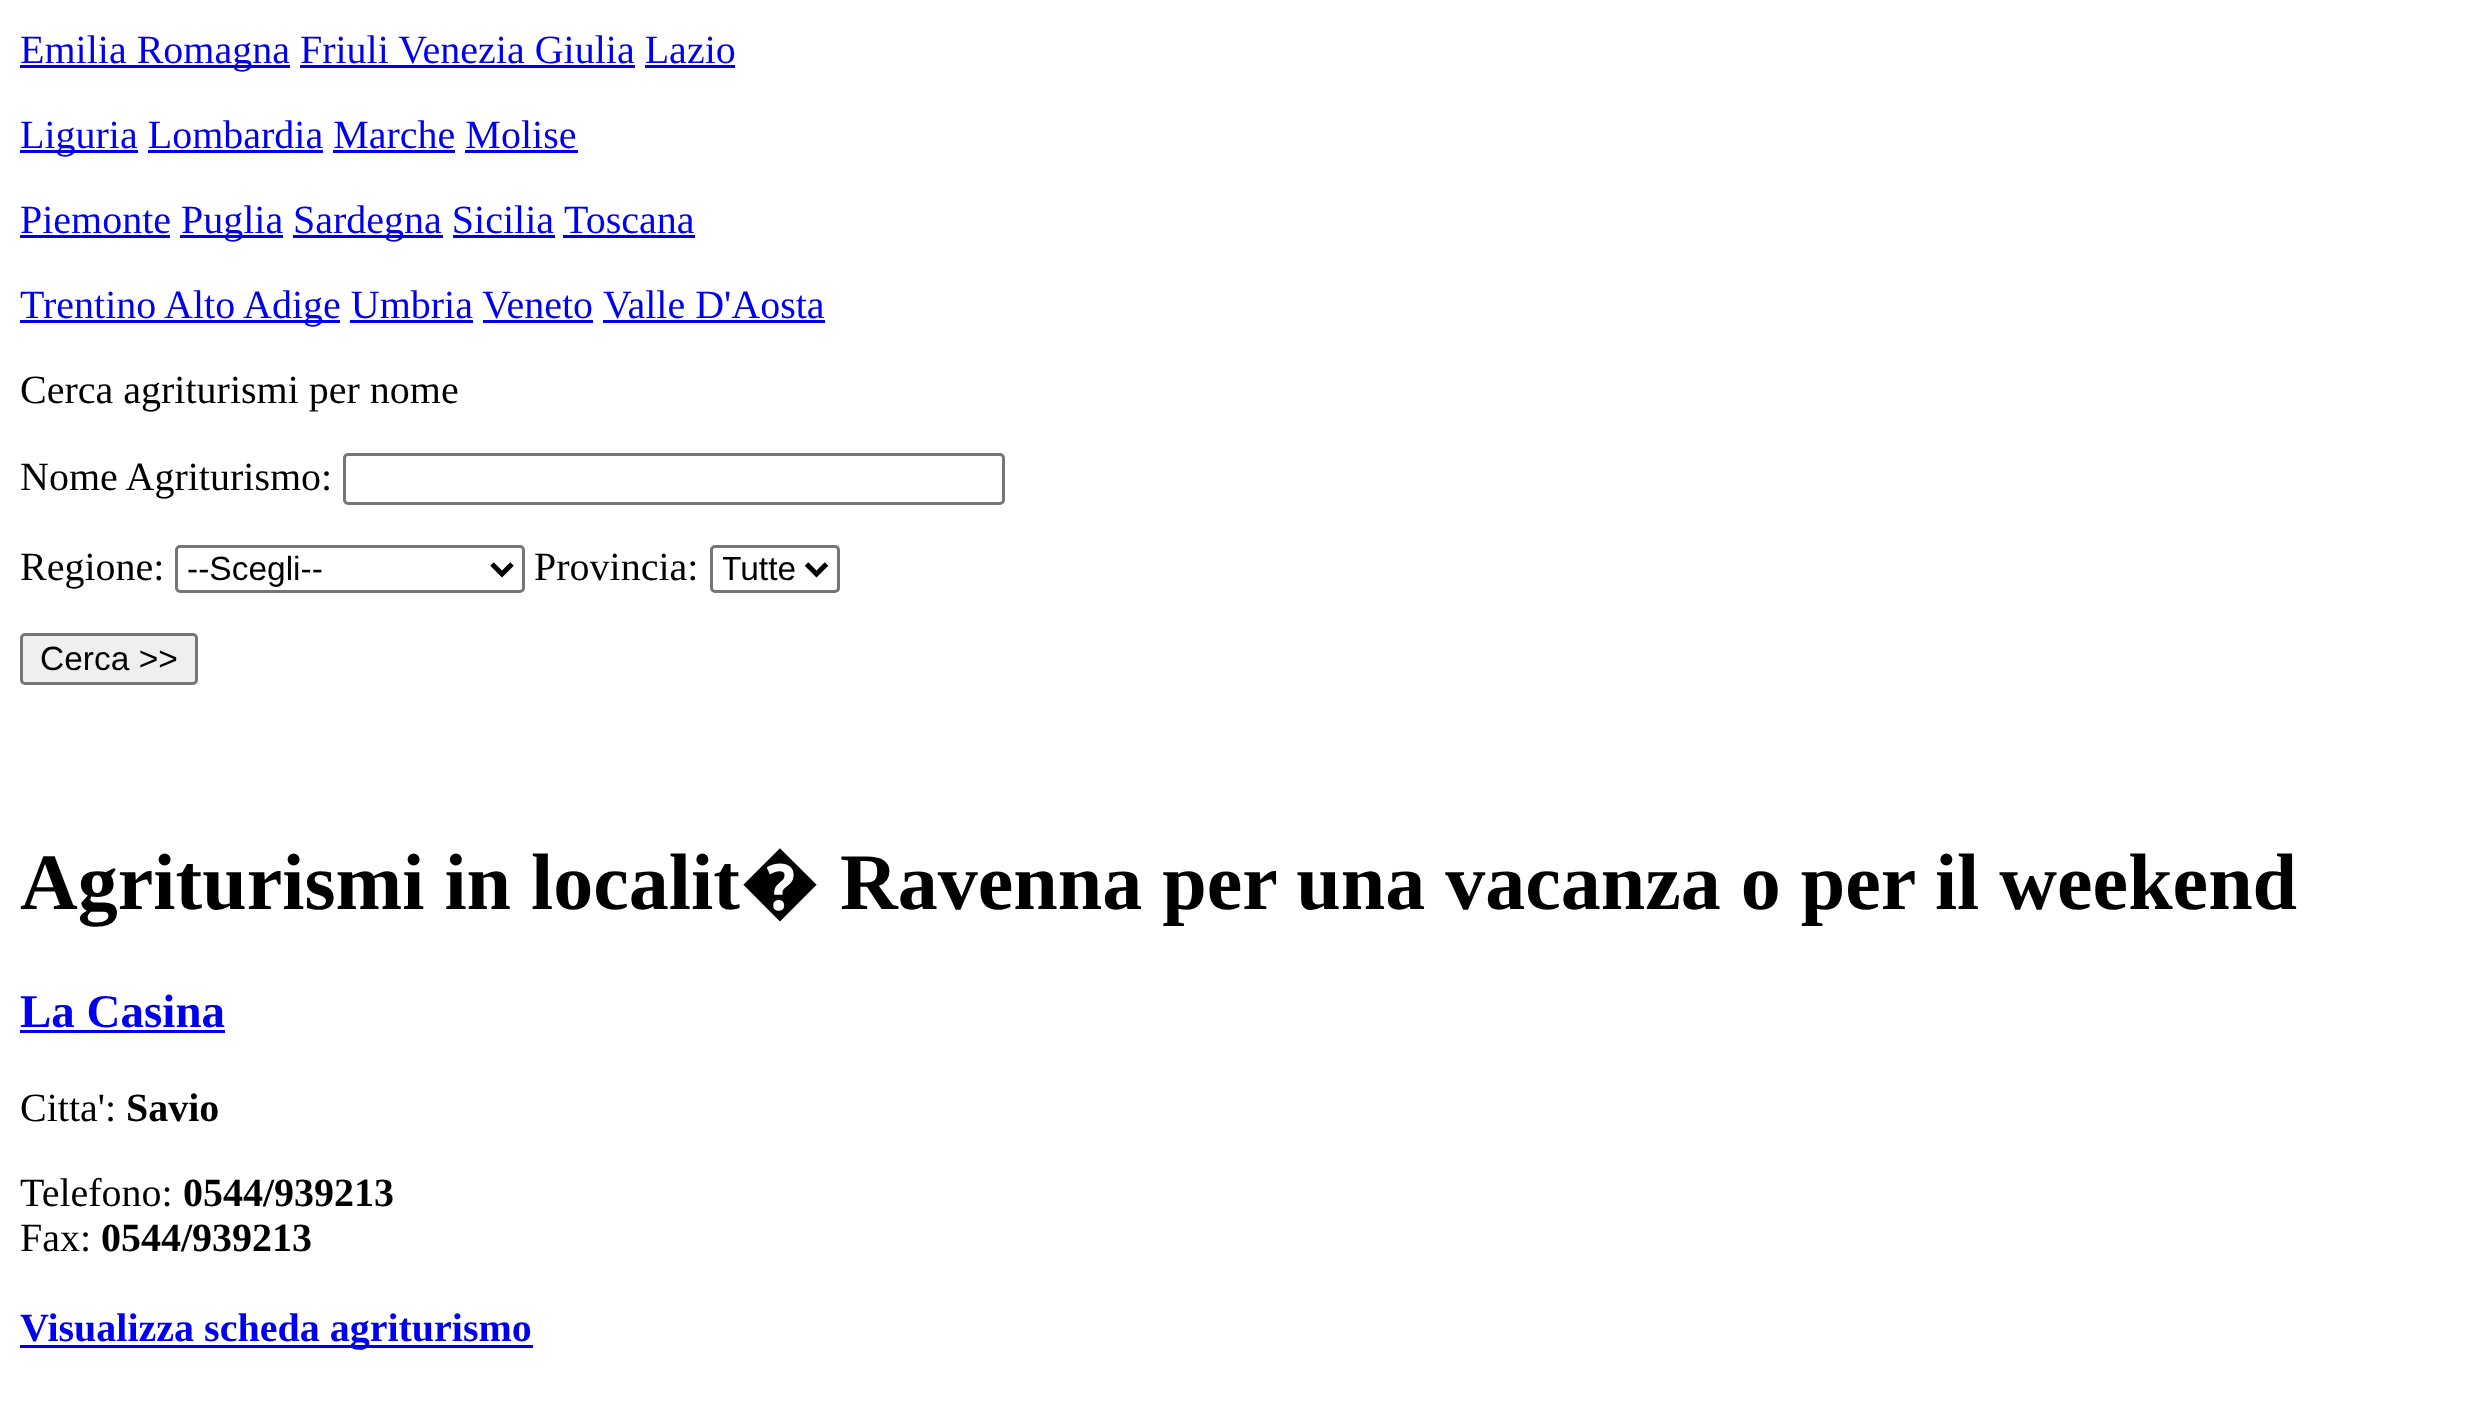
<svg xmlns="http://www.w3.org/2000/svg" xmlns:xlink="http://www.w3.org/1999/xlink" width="2482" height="1407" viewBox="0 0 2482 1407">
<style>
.cls-1{font:40px Liberation Serif;fill:#0000ee}
.cls-2{font:40px Liberation Serif;fill:#000000}
.cls-3{font:33.5px Liberation Sans;fill:#000000}
.cls-4{font:bold 80px Liberation Serif;fill:#000000}
.cls-5{font:900 80px Noto Sans;fill:#000000}
.cls-6{font:bold 47px Liberation Serif;fill:#0000ee}
.cls-7{font:bold 40px Liberation Serif;fill:#000000}
.cls-8{font:bold 40px Liberation Serif;fill:#0000ee}
</style>
<defs>
<clipPath id="clip1"><rect x="723" y="548" width="75" height="42"/></clipPath>
</defs>
<rect width="100%" height="100%" fill="#ffffff"/>
<rect fill="#0000ee" x="20" y="65" width="270" height="3"/>
<rect fill="#0000ee" x="300" y="65" width="335" height="3"/>
<rect fill="#0000ee" x="645" y="65" width="90" height="3"/>
<rect fill="#0000ee" x="20" y="150" width="118" height="3"/>
<rect fill="#0000ee" x="148" y="150" width="175" height="3"/>
<rect fill="#0000ee" x="333" y="150" width="122" height="3"/>
<rect fill="#0000ee" x="465" y="150" width="113" height="3"/>
<rect fill="#0000ee" x="20" y="235" width="150" height="3"/>
<rect fill="#0000ee" x="180" y="235" width="103" height="3"/>
<rect fill="#0000ee" x="293" y="235" width="150" height="3"/>
<rect fill="#0000ee" x="563" y="235" width="132" height="3"/>
<rect fill="#0000ee" x="453" y="235" width="102" height="3"/>
<rect fill="#0000ee" x="20" y="320" width="320" height="3"/>
<rect fill="#0000ee" x="483" y="320" width="110" height="3"/>
<rect fill="#0000ee" x="603" y="320" width="222" height="3"/>
<rect fill="#0000ee" x="350" y="320" width="123" height="3"/>
<rect fill="none" stroke="#767676" stroke-width="3" x="344.5" y="454.5" width="659" height="49" rx="3.5"/>
<rect fill="none" stroke="#767676" stroke-width="3" x="176.5" y="546.5" width="347" height="45" rx="3.5"/>
<path fill="none" stroke="#000000" stroke-width="5" d="M492 564L502 574L512 564"/>
<rect fill="none" stroke="#767676" stroke-width="3" x="711.5" y="546.5" width="127" height="45" rx="3.5"/>
<path fill="none" stroke="#000000" stroke-width="5" d="M806.5 564L816.5 574L826.5 564"/>
<rect fill="#efefef" stroke="#767676" stroke-width="3" x="21.5" y="634.5" width="175" height="49" rx="3.5"/>
<rect fill="#0000ee" x="20" y="1030" width="205" height="3"/>
<rect fill="#0000ee" x="20" y="1345" width="513" height="3"/>
<text class="cls-1" x="20" y="63">Emilia Romagna Friuli Venezia Giulia Lazio</text>
<text class="cls-1" x="20" y="148">Liguria Lombardia Marche Molise</text>
<text class="cls-1" x="20" y="233">Piemonte</text>
<text class="cls-1" x="181" y="233">Puglia</text>
<text class="cls-1" x="293" y="233">Sardegna Sicilia</text>
<text class="cls-1" x="564" y="233">Toscana</text>
<text class="cls-1" x="20" y="318">Trentino Alto Adige Umbria</text>
<text class="cls-1" x="482" y="318">Veneto</text>
<text class="cls-1" x="603" y="318">Valle D'Aosta</text>
<text class="cls-2" x="20" y="403">Cerca agriturismi per nome</text>
<text class="cls-2" x="20" y="490">Nome Agriturismo:</text>
<text class="cls-2" x="20" y="580">Regione:</text>
<text class="cls-3" x="187" y="580">--Scegli--</text>
<text class="cls-2" x="534" y="580">Provincia:</text>
<g clip-path="url(#clip1)">
<text class="cls-3" x="721" y="580">Tutte</text>
</g>
<text class="cls-3" x="40" y="670">Cerca &gt;&gt;</text>
<text class="cls-4" x="20" y="909">Agriturismi in localit</text>
<text class="cls-5" x="740" y="909">�</text>
<text class="cls-4" x="840" y="909">Ravenna per una vacanza o per il weekend</text>
<text class="cls-6" x="20" y="1027">La Casina</text>
<text class="cls-2" x="20" y="1121">Citta':</text>
<text class="cls-7" x="126" y="1121">Savio</text>
<text class="cls-2" x="20" y="1206">Telefono:</text>
<text class="cls-7" x="183" y="1206">0544/939213</text>
<text class="cls-2" x="20" y="1251">Fax:</text>
<text class="cls-7" x="101" y="1251">0544/939213</text>
<text class="cls-8" x="20" y="1341">Visualizza scheda agriturismo</text>
</svg>
